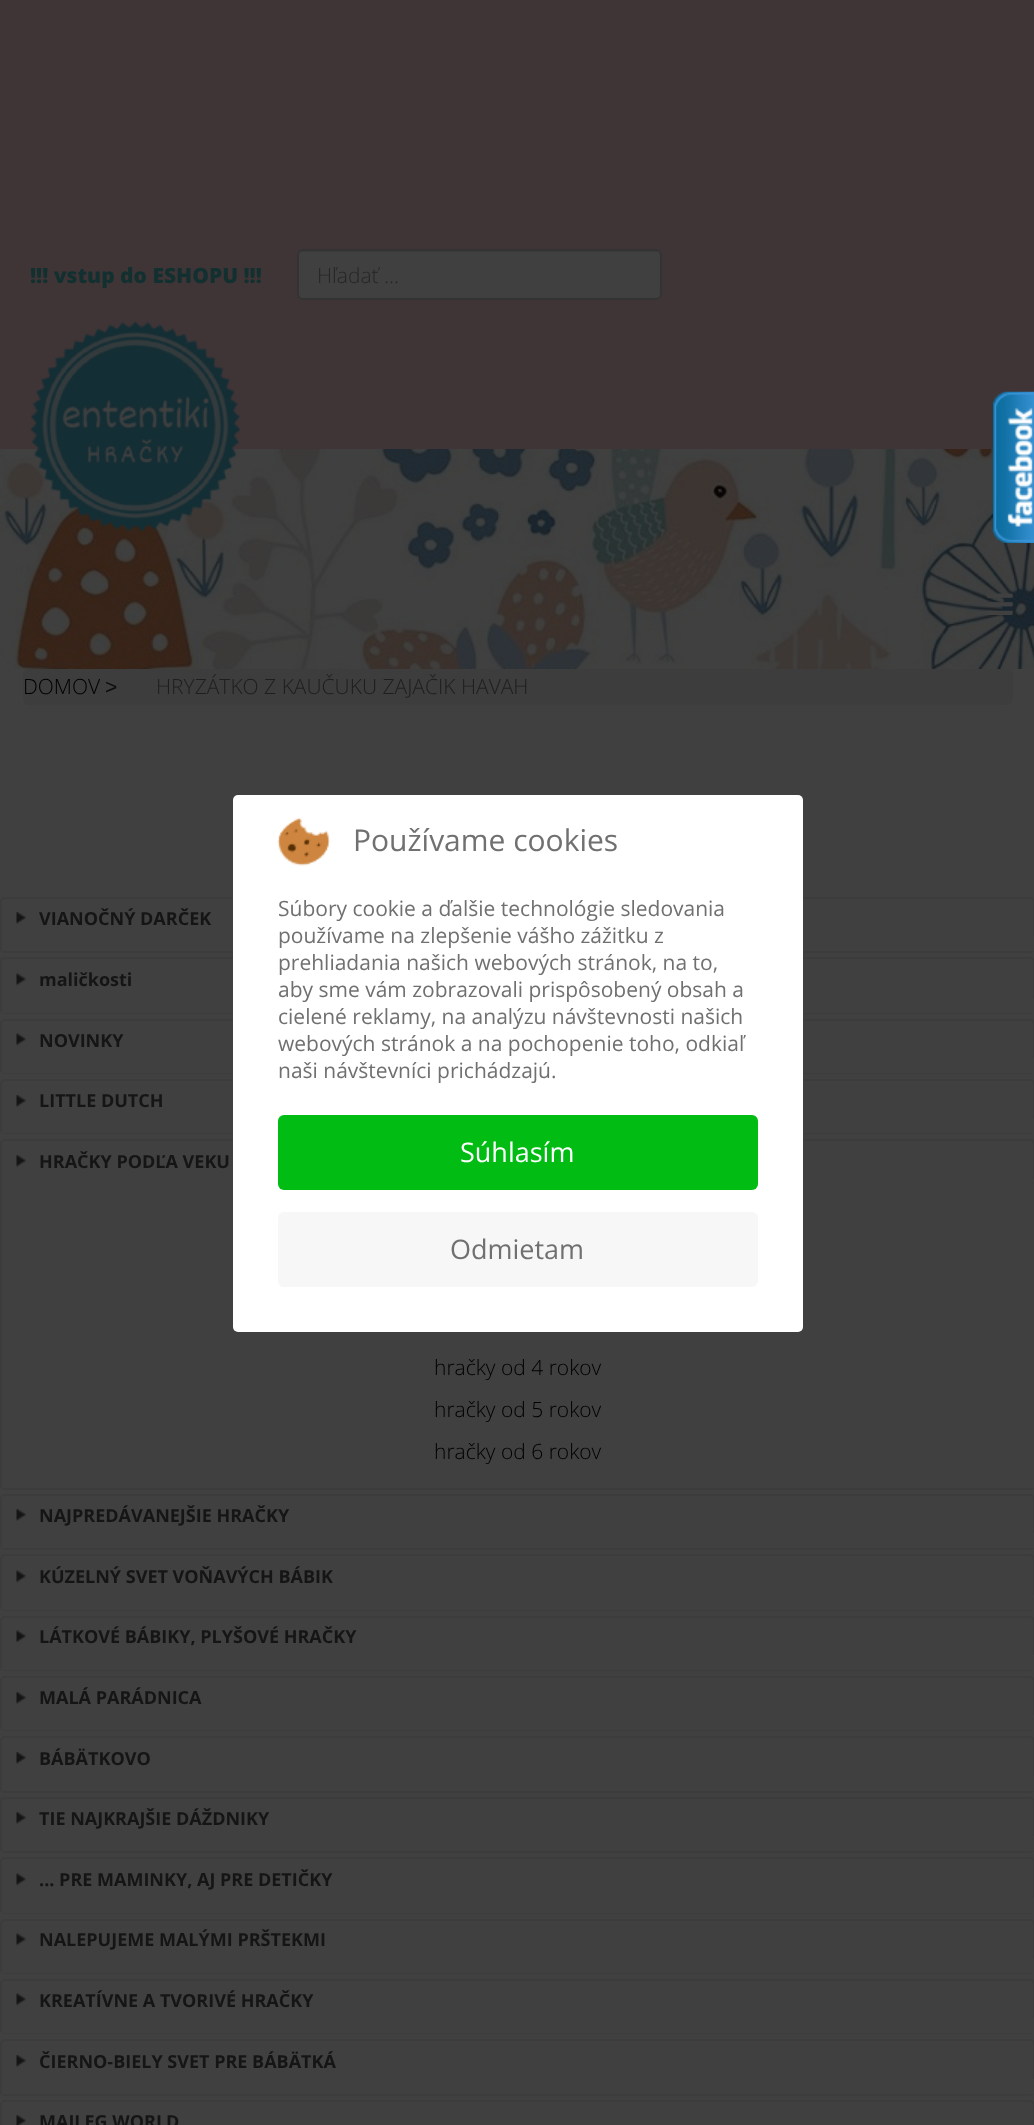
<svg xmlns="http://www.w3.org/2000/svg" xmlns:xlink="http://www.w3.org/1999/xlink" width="1034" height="2125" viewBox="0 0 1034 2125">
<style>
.cls-1{font:800 21px Open Sans;fill:#133030}
.cls-2{font:300 21px Open Sans;fill:#262626}
.cls-3{font:300 21px Open Sans;fill:#000000}
.cls-4{font:21px Liberation Sans;fill:#0d0d0d}
.cls-5{font:300 21px Open Sans;fill:#1e1e1e}
.cls-6{font:bold 18px Open Sans;fill:#151515}
.cls-7{font:30px Open Sans;fill:#707070}
.cls-8{font:21px Open Sans;fill:#707070}
.cls-9{font:27px Open Sans;fill:#ffffff}
.cls-10{font:27px Open Sans;fill:#707070}
</style>
<rect width="100%" height="100%" fill="#404040"/>
<rect fill="#403536" x="0" y="0" width="1034" height="449"/>
<rect fill="#404040" x="297" y="249" width="365" height="51" rx="6"/>
<path fill="#3b3b3b" d="M303 252H656C658 252 660 254 660 256C660 253 658 251 655 251H304C302 251 301 252 300 253Z"/>
<rect fill="none" stroke="#333333" stroke-width="2" x="298" y="250" width="363" height="49" rx="5"/>
<image xlink:href="image3.png" x="0" y="449" width="1034" height="220"/>
<image xlink:href="image0.png" x="993" y="391" width="41" height="152"/>
<image xlink:href="image1.png" x="29" y="321" width="212" height="211"/>
<image xlink:href="image2.png" x="987" y="593" width="26" height="22"/>
<rect fill="#3d3d3d" x="23" y="669" width="990" height="36" rx="6"/>
<rect fill="none" stroke="#3c3c3c" stroke-width="2" x="1" y="898" width="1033" height="54" rx="4"/>
<image xlink:href="image4.png" x="16" y="912" width="10" height="12"/>
<rect fill="#404040" x="2" y="936" width="1032" height="15"/>
<rect fill="none" stroke="#3c3c3c" stroke-width="2" x="1" y="958" width="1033" height="55" rx="4"/>
<image xlink:href="image5.png" x="16" y="973" width="10" height="13"/>
<rect fill="#404040" x="2" y="998" width="1032" height="15"/>
<rect fill="none" stroke="#3c3c3c" stroke-width="2" x="1" y="1020" width="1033" height="53" rx="4"/>
<image xlink:href="image5.png" x="16" y="1033" width="10" height="13"/>
<rect fill="#404040" x="2" y="1058" width="1032" height="15"/>
<rect fill="none" stroke="#3c3c3c" stroke-width="2" x="1" y="1080" width="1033" height="53" rx="4"/>
<image xlink:href="image4.png" x="16" y="1095" width="10" height="12"/>
<rect fill="#404040" x="2" y="1118" width="1032" height="15"/>
<rect fill="none" stroke="#3c3c3c" stroke-width="2" x="1" y="1140" width="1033" height="349" rx="4"/>
<image xlink:href="image4.png" x="16" y="1155" width="10" height="12"/>
<rect fill="#404040" x="2" y="1179" width="1032" height="309"/>
<rect fill="none" stroke="#3c3c3c" stroke-width="2" x="1" y="1495" width="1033" height="54" rx="4"/>
<image xlink:href="image4.png" x="16" y="1509" width="10" height="12"/>
<rect fill="#404040" x="2" y="1533" width="1032" height="15"/>
<rect fill="none" stroke="#3c3c3c" stroke-width="2" x="1" y="1555" width="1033" height="55" rx="4"/>
<image xlink:href="image5.png" x="16" y="1570" width="10" height="13"/>
<rect fill="#404040" x="2" y="1595" width="1032" height="15"/>
<rect fill="none" stroke="#3c3c3c" stroke-width="2" x="1" y="1617" width="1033" height="53" rx="4"/>
<image xlink:href="image5.png" x="16" y="1630" width="10" height="13"/>
<rect fill="#404040" x="2" y="1655" width="1032" height="15"/>
<rect fill="none" stroke="#3c3c3c" stroke-width="2" x="1" y="1677" width="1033" height="53" rx="4"/>
<image xlink:href="image4.png" x="16" y="1692" width="10" height="12"/>
<rect fill="#404040" x="2" y="1715" width="1032" height="15"/>
<rect fill="none" stroke="#3c3c3c" stroke-width="2" x="1" y="1737" width="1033" height="55" rx="4"/>
<image xlink:href="image4.png" x="16" y="1752" width="10" height="12"/>
<rect fill="#404040" x="2" y="1776" width="1032" height="15"/>
<rect fill="none" stroke="#3c3c3c" stroke-width="2" x="1" y="1798" width="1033" height="54" rx="4"/>
<image xlink:href="image4.png" x="16" y="1812" width="10" height="12"/>
<rect fill="#404040" x="2" y="1836" width="1032" height="15"/>
<rect fill="none" stroke="#3c3c3c" stroke-width="2" x="1" y="1858" width="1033" height="55" rx="4"/>
<image xlink:href="image5.png" x="16" y="1873" width="10" height="13"/>
<rect fill="#404040" x="2" y="1898" width="1032" height="15"/>
<rect fill="none" stroke="#3c3c3c" stroke-width="2" x="1" y="1920" width="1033" height="53" rx="4"/>
<image xlink:href="image5.png" x="16" y="1933" width="10" height="13"/>
<rect fill="#404040" x="2" y="1958" width="1032" height="15"/>
<rect fill="none" stroke="#3c3c3c" stroke-width="2" x="1" y="1980" width="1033" height="53" rx="4"/>
<image xlink:href="image5.png" x="16" y="1993" width="10" height="13"/>
<rect fill="#404040" x="2" y="2018" width="1032" height="15"/>
<rect fill="none" stroke="#3c3c3c" stroke-width="2" x="1" y="2040" width="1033" height="55" rx="4"/>
<image xlink:href="image4.png" x="16" y="2055" width="10" height="12"/>
<rect fill="#404040" x="2" y="2079" width="1032" height="15"/>
<rect fill="none" stroke="#3c3c3c" stroke-width="2" x="1" y="2101" width="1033" height="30" rx="4"/>
<image xlink:href="image6.png" x="16" y="2115" width="10" height="10"/>
<rect fill="#ffffff" x="233" y="795" width="570" height="537" rx="5"/>
<image xlink:href="image7.png" x="277" y="817" width="53" height="49"/>
<rect fill="#00bc13" x="278" y="1115" width="480" height="75" rx="6"/>
<rect fill="#f7f7f7" x="278" y="1212" width="480" height="75" rx="6"/>
<text class="cls-1" x="30" y="283">!!! vstup do ESHOPU !!!</text>
<text class="cls-2" x="317" y="283">Hľadať ...</text>
<text class="cls-3" x="23" y="694">DOMOV</text>
<text class="cls-4" x="105" y="694">˃</text>
<text class="cls-5" x="156" y="694">HRYZÁTKO Z KAUČUKU ZAJAČIK HAVAH</text>
<text class="cls-6" x="39" y="925">VIANOČNÝ DARČEK</text>
<text class="cls-6" x="39" y="986">maličkosti</text>
<text class="cls-6" x="39" y="1047">NOVINKY</text>
<text class="cls-6" x="39" y="1107">LITTLE DUTCH</text>
<text class="cls-6" x="39" y="1168">HRAČKY PODĽA VEKU</text>
<text class="cls-3" x="434" y="1375">hračky od 4 rokov</text>
<text class="cls-3" x="434" y="1417">hračky od 5 rokov</text>
<text class="cls-3" x="434" y="1459">hračky od 6 rokov</text>
<text class="cls-6" x="39" y="1522">NAJPREDÁVANEJŠIE HRAČKY</text>
<text class="cls-6" x="39" y="1583">KÚZELNÝ SVET VOŇAVÝCH BÁBIK</text>
<text class="cls-6" x="39" y="1643">LÁTKOVÉ BÁBIKY, PLYŠOVÉ HRAČKY</text>
<text class="cls-6" x="39" y="1704">MALÁ PARÁDNICA</text>
<text class="cls-6" x="39" y="1765">BÁBÄTKOVO</text>
<text class="cls-6" x="39" y="1825">TIE NAJKRAJŠIE DÁŽDNIKY</text>
<text class="cls-6" x="39" y="1886">... PRE MAMINKY, AJ PRE DETIČKY</text>
<text class="cls-6" x="39" y="1946">NALEPUJEME MALÝMI PRŠTEKMI</text>
<text class="cls-6" x="39" y="2007">KREATÍVNE A TVORIVÉ HRAČKY</text>
<text class="cls-6" x="39" y="2068">ČIERNO-BIELY SVET PRE BÁBÄTKÁ</text>
<text class="cls-6" x="39" y="2128">MAILEG WORLD</text>
<text class="cls-7" x="353" y="851">Používame cookies</text>
<text class="cls-8"><tspan x="278" y="916">Súbory cookie a ďalšie technológie sledovania</tspan><tspan x="278" y="943">používame na zlepšenie vášho zážitku z</tspan><tspan x="278" y="970">prehliadania našich webových stránok, na to,</tspan><tspan x="278" y="997">aby sme vám zobrazovali prispôsobený obsah a</tspan><tspan x="278" y="1024">cielené reklamy, na analýzu návštevnosti našich</tspan><tspan x="278" y="1051">webových stránok a na pochopenie toho, odkiaľ</tspan><tspan x="278" y="1078">naši návštevníci prichádzajú.</tspan></text>
<text class="cls-9" x="460" y="1162">Súhlasím</text>
<text class="cls-10" x="450" y="1259">Odmietam</text>
</svg>
